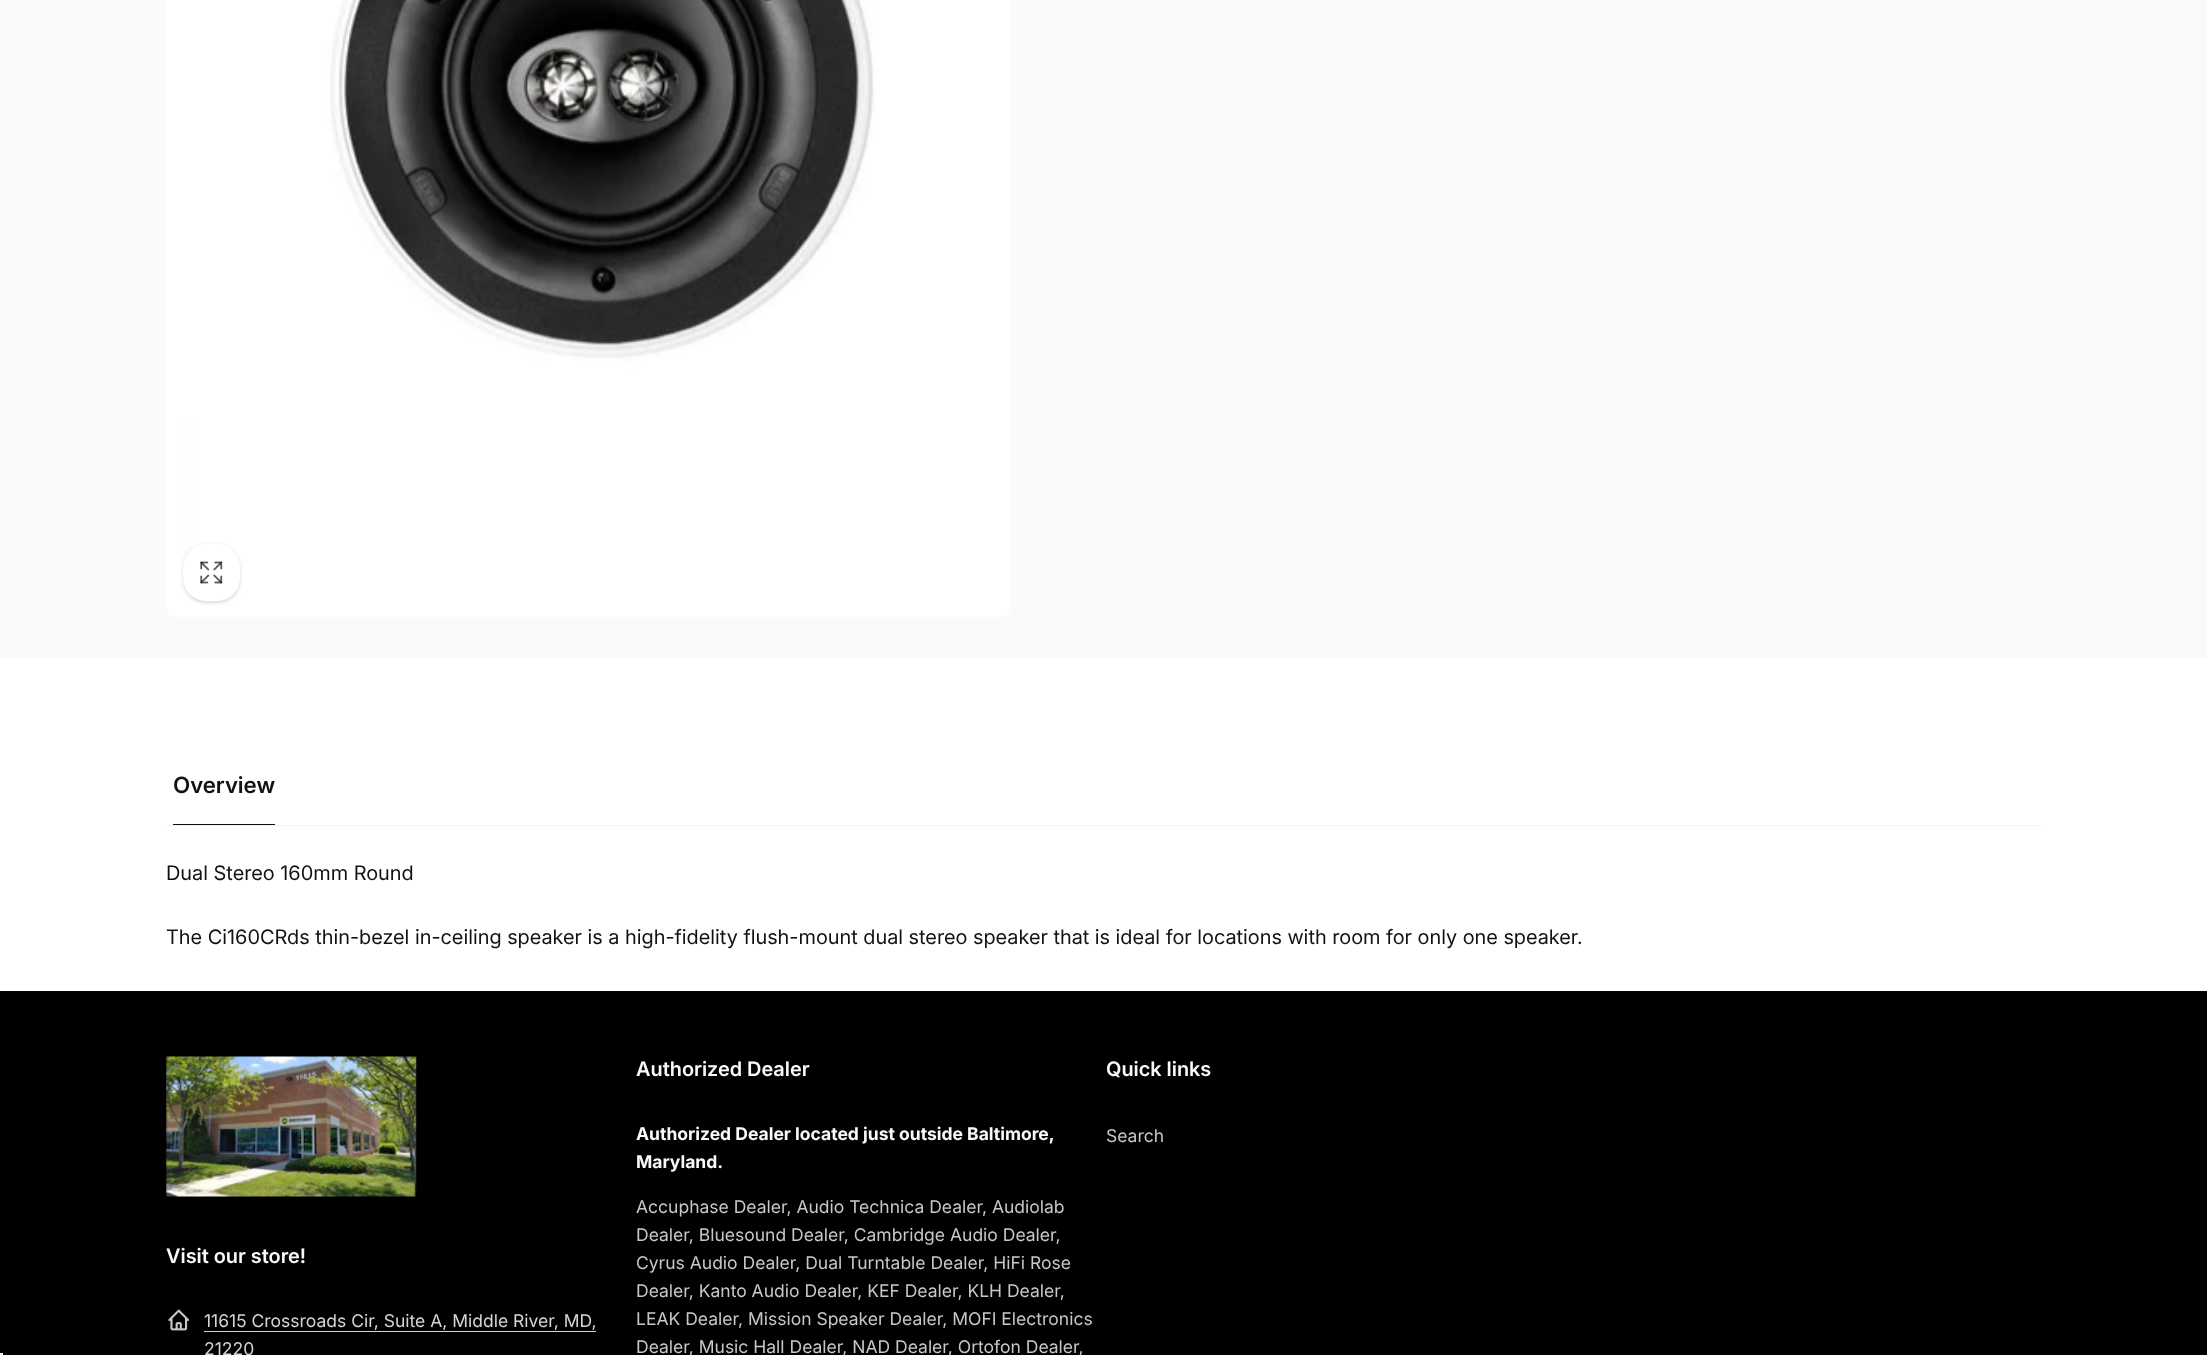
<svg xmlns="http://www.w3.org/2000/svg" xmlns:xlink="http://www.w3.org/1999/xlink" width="2207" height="1355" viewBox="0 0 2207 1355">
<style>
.cls-1{font:600 22.5px 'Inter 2';fill:#121212}
.cls-2{font:20px 'Inter 2';fill:#121212}
.cls-3{font:600 20px Inter;fill:#fafafa}
.cls-4{font:bold 17.5px Inter;fill:#fafafa}
.cls-5{font:17.5px Inter;fill:#c8c8c8}
.cls-6{font:17.5px Inter;fill:#d5d5d5}
</style>
<rect width="100%" height="100%" fill="#ffffff"/>
<rect fill="#f8fafc" x="0" y="0" width="2207" height="658"/>
<image xlink:href="image0.png" x="166" y="0" width="844" height="617"/>
<rect fill="#121212" fill-opacity="0.06" filter="blur(1px)" x="183" y="545" width="57" height="58" rx="23"/>
<rect fill="#121212" fill-opacity="0.1" filter="blur(2px)" x="183" y="545" width="57" height="58" rx="23"/>
<rect fill="#ffffff" x="183" y="544" width="57" height="57" rx="23"/>
<image xlink:href="image1.png" x="200" y="561" width="23" height="23"/>
<rect fill="#f3f3f3" x="166" y="825" width="1875" height="1"/>
<rect fill="#121212" x="173" y="824" width="102" height="1"/>
<rect fill="#000000" x="0" y="991" width="2207" height="364"/>
<rect fill="#f5f5f5" x="0" y="1353" width="3" height="2"/>
<image xlink:href="image2.png" x="166" y="1056" width="251" height="141"/>
<image xlink:href="image3.png" x="168" y="1309" width="22" height="22"/>
<rect fill="#d5d5d5" x="204" y="1331" width="392" height="1"/>
<text class="cls-1" x="173" y="793">Overview</text>
<text class="cls-2" x="166" y="880">Dual Stereo 160mm Round</text>
<text class="cls-2" x="166" y="944">The Ci160CRds thin-bezel in-ceiling speaker is a high-fidelity flush-mount dual stereo speaker that is ideal for locations with room for only one speaker.</text>
<text class="cls-3" x="636" y="1076">Authorized Dealer</text>
<text class="cls-4"><tspan x="636" y="1140">Authorized Dealer located just outside Baltimore,</tspan><tspan x="636" y="1168">Maryland.</tspan></text>
<text class="cls-5"><tspan x="636" y="1213">Accuphase Dealer, Audio Technica Dealer, Audiolab</tspan><tspan x="636" y="1241">Dealer, Bluesound Dealer, Cambridge Audio Dealer,</tspan><tspan x="636" y="1269">Cyrus Audio Dealer, Dual Turntable Dealer, HiFi Rose</tspan><tspan x="636" y="1297">Dealer, Kanto Audio Dealer, KEF Dealer, KLH Dealer,</tspan><tspan x="636" y="1325">LEAK Dealer, Mission Speaker Dealer, MOFI Electronics</tspan><tspan x="636" y="1353">Dealer, Music Hall Dealer, NAD Dealer, Ortofon Dealer,</tspan></text>
<text class="cls-3" x="1106" y="1076">Quick links</text>
<text class="cls-5" x="1106" y="1142">Search</text>
<text class="cls-3" x="166" y="1263">Visit our store!</text>
<text class="cls-6"><tspan x="204" y="1327">11615 Crossroads Cir, Suite A, Middle River, MD,</tspan><tspan x="204" y="1355">21220</tspan></text>
</svg>
